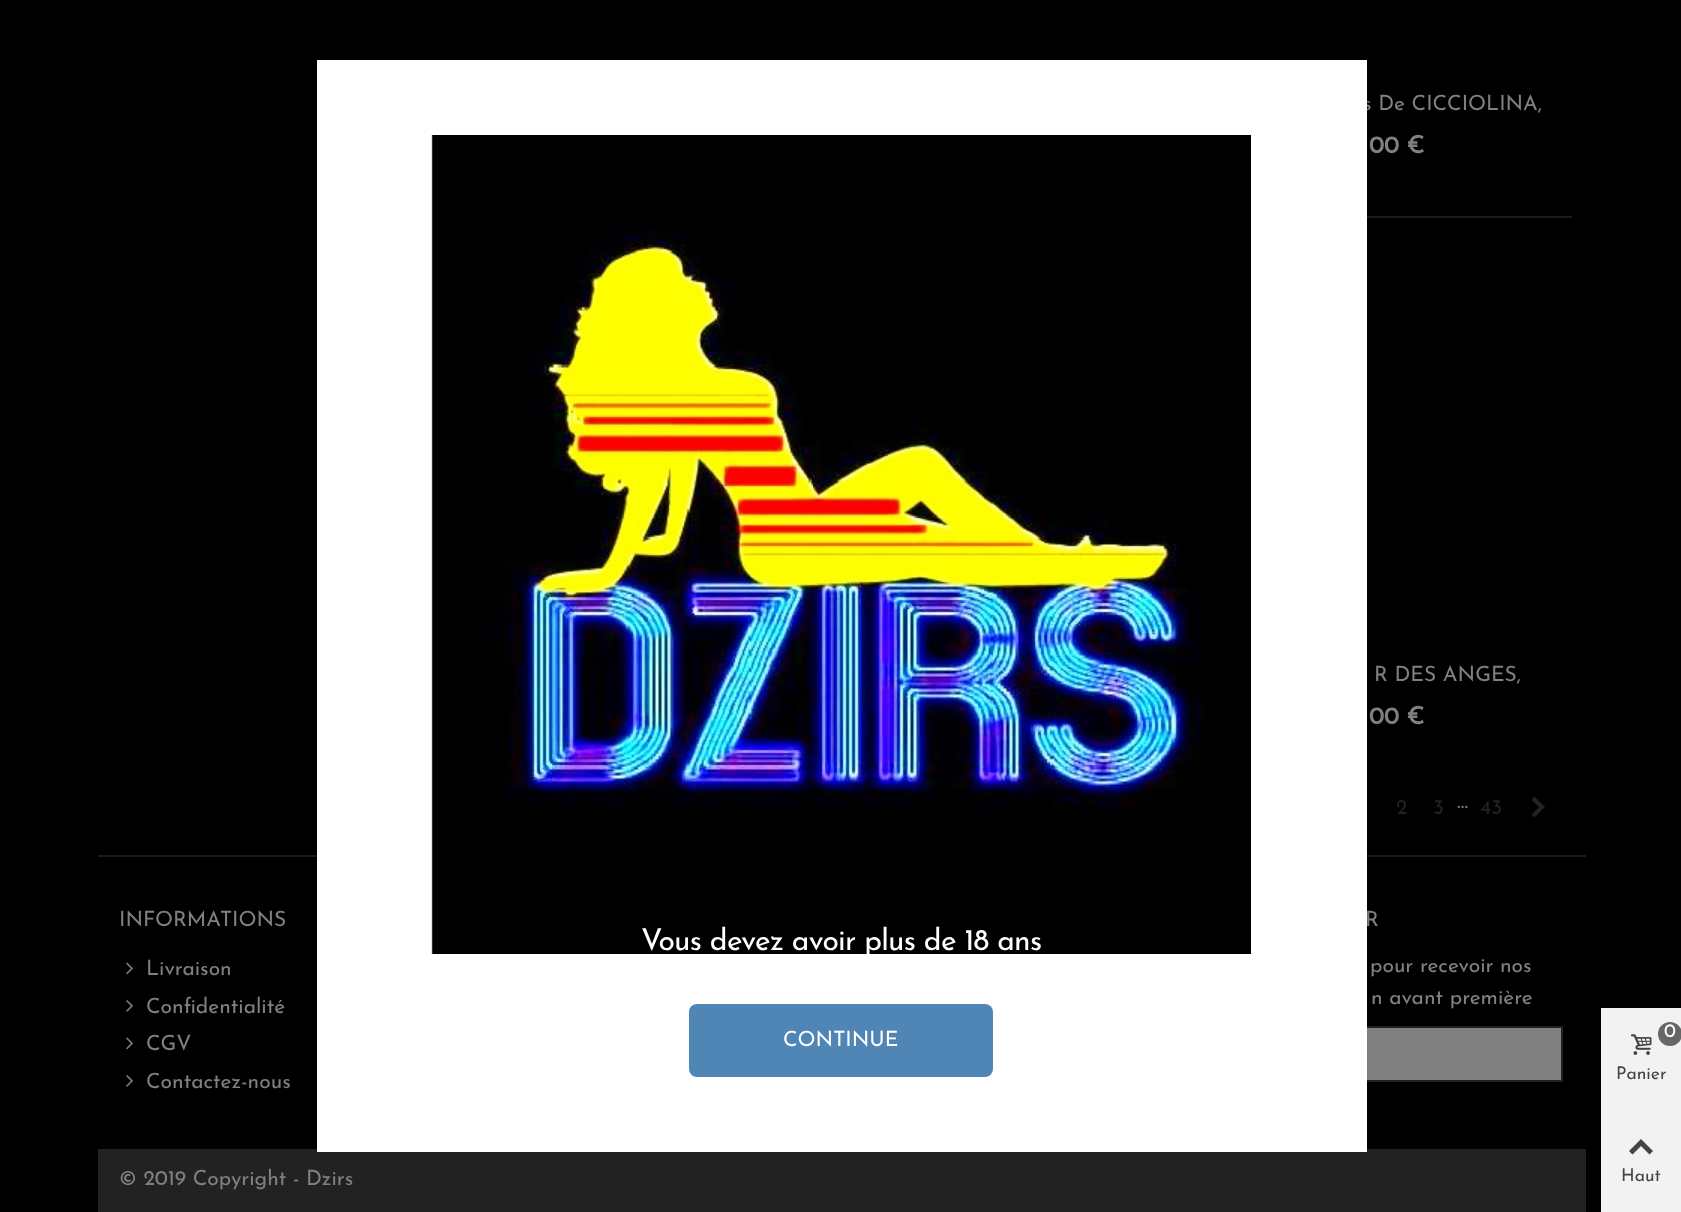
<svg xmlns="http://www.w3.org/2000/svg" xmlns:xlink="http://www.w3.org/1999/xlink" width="1681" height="1212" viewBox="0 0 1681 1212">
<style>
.cls-1{font:100 21px Josefin Sans;fill:#808080}
.cls-2{font:bold 24px Josefin Sans;fill:#808080}
.cls-3{font:100 21px Josefin Sans;fill:#222222}
.cls-4{font:100 19px Josefin Sans;fill:#ffffff}
.cls-5{font:100 17.5px Josefin Sans;fill:#444444}
.cls-6{font:100 30px Josefin Sans;letter-spacing:-0.75px;fill:#ffffff}
.cls-7{font:100 21px Josefin Sans;fill:#ffffff}
</style>
<rect width="100%" height="100%" fill="#000000"/>
<rect fill="#1a1a1a" x="1367" y="216" width="205" height="2"/>
<path fill="#222222" d="M1531.5 814.5L1539 807L1531.5 800L1534.5 796.5L1545 807L1534.5 817.5Z"/>
<rect fill="#1a1a1a" x="98" y="855" width="1488" height="2"/>
<image xlink:href="image0.png" x="126" y="962" width="7" height="13"/>
<image xlink:href="image1.png" x="126" y="1000" width="7" height="12"/>
<image xlink:href="image0.png" x="126" y="1037" width="7" height="13"/>
<image xlink:href="image1.png" x="126" y="1075" width="7" height="12"/>
<rect fill="#808080" x="1367" y="1028" width="194" height="52"/>
<rect fill="none" stroke="#222222" stroke-width="2" x="1237" y="1027" width="325" height="54"/>
<rect fill="#222222" x="98" y="1149" width="1488" height="63"/>
<rect fill="#f2f2f2" x="1601" y="1008" width="80" height="204"/>
<circle fill="#666666" cx="1670" cy="1034" r="12"/>
<image xlink:href="image2.png" x="1631" y="1034" width="21" height="21"/>
<path fill="#444444" d="M1629 1151L1641 1139L1653 1151L1649.5 1154.5L1641 1146L1632.5 1154.5Z"/>
<text class="cls-1" x="1363" y="110">s De CICCIOLINA,</text>
<text class="cls-2" x="1369" y="153">00 €</text>
<text class="cls-1" x="1374" y="681">R DES ANGES,</text>
<text class="cls-2" x="1369" y="724">00 €</text>
<text class="cls-3" x="1396" y="814">2</text>
<text class="cls-3" x="1433" y="814">3</text>
<text class="cls-1" x="1457" y="808">…</text>
<text class="cls-3" x="1480" y="814">43</text>
<text class="cls-1" x="119" y="926">INFORMATIONS</text>
<text class="cls-1"><tspan x="146" y="975">Livraison</tspan><tspan x="146" y="1013">Confidentialité</tspan><tspan x="146" y="1050">CGV</tspan><tspan x="146" y="1088">Contactez-nous</tspan></text>
<text class="cls-1" x="1365" y="926">R</text>
<text class="cls-1" x="1370" y="972">pour recevoir nos</text>
<text class="cls-1" x="1371" y="1004">n avant première</text>
<text class="cls-1" x="119" y="1185">© 2019 Copyright - Dzirs</text>
<text class="cls-4" x="1664" y="1037">0</text>
<text class="cls-5" x="1616" y="1079">Panier</text>
<text class="cls-5" x="1621" y="1181">Haut</text>
<rect fill="#ffffff" x="317" y="60" width="1050" height="1092"/>
<image xlink:href="image3.png" x="431" y="135" width="820" height="819"/>
<text class="cls-6" x="641" y="950">Vous devez avoir plus de 18 ans</text>
<rect fill="#4f86b5" x="689" y="1004" width="304" height="73" rx="8"/>
<text class="cls-7" x="783" y="1046">CONTINUE</text>
</svg>
